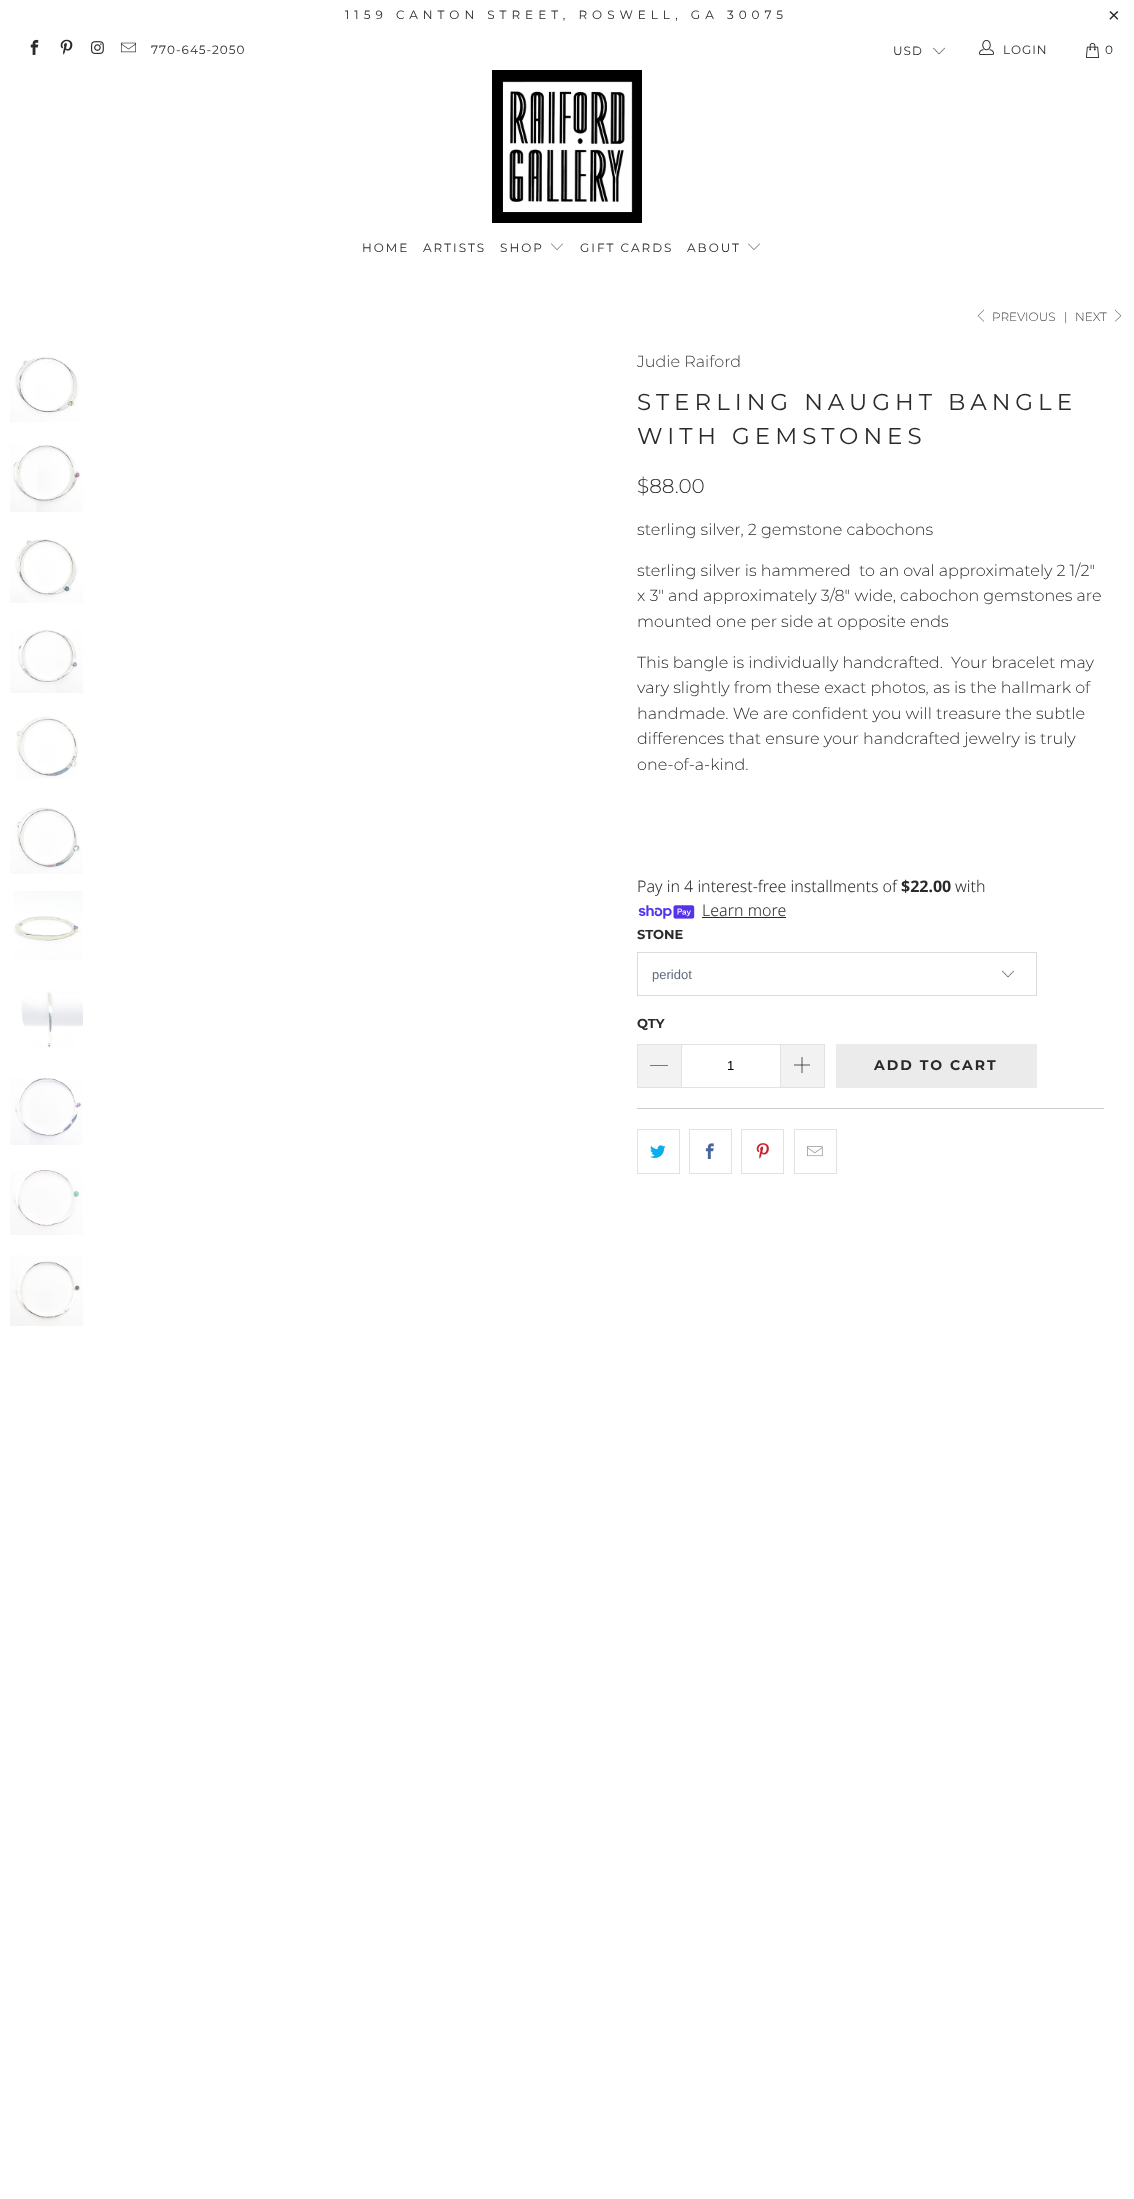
<svg xmlns="http://www.w3.org/2000/svg" xmlns:xlink="http://www.w3.org/1999/xlink" width="1134" height="2199" viewBox="0 0 1134 2199">
<style>
.cls-1{font:12px Montserrat;letter-spacing:5px;fill:#2b2a2a}
.cls-2{font:20px Liberation Sans;letter-spacing:5px;fill:#2b2a2a}
.cls-3{font:12px Montserrat;letter-spacing:1px;fill:#2b2a2a}
.cls-4{font:12px Montserrat;letter-spacing:2px;fill:#2b2a2a}
.cls-5{font:300 12px Montserrat;fill:#3b3b3b}
.cls-6{font:300 16px Montserrat;fill:#3b3b3b}
.cls-7{font:23px Montserrat;letter-spacing:5px;fill:#2b2a2a}
.cls-8{font:300 20px Montserrat;fill:#2b2a2a}
.cls-9{font:300 16px Montserrat;fill:#2b2a2a}
.cls-10{font:300 16px Noto Sans;fill:#2b2a2a}
.cls-11{font:bold 16px Noto Sans;fill:#2b2a2a}
.cls-12{font:bold 13px Montserrat;fill:#2b2a2a}
.cls-13{font:13px Liberation Sans;fill:#5f6a7d}
.cls-14{font:13px Liberation Sans;fill:#000000}
.cls-15{font:bold 14px Montserrat;letter-spacing:2px;fill:#2b2a2a}
</style>
<rect width="100%" height="100%" fill="#ffffff"/>
<image xlink:href="image0.png" x="30" y="39" width="9" height="16"/>
<image xlink:href="image1.png" x="60" y="39" width="13" height="16"/>
<image xlink:href="image2.png" x="91" y="41" width="13" height="13"/>
<image xlink:href="image3.png" x="121" y="42" width="15" height="11"/>
<image xlink:href="image4.png" x="933" y="47" width="12" height="8"/>
<image xlink:href="image5.png" x="979" y="39" width="15" height="16"/>
<image xlink:href="image6.png" x="1085" y="43" width="15" height="15"/>
<image xlink:href="image7.png" x="492" y="70" width="150" height="153"/>
<image xlink:href="image8.png" x="551" y="243" width="12" height="7"/>
<image xlink:href="image8.png" x="748" y="243" width="12" height="7"/>
<image xlink:href="image9.png" x="977" y="309" width="8" height="13"/>
<image xlink:href="image10.png" x="1114" y="309" width="8" height="13"/>
<image xlink:href="image11.png" x="10" y="351" width="70" height="71"/>
<image xlink:href="image12.png" x="10" y="445" width="73" height="67"/>
<image xlink:href="image13.png" x="10" y="539" width="73" height="64"/>
<image xlink:href="image14.png" x="10" y="629" width="73" height="64"/>
<image xlink:href="image15.png" x="16" y="716" width="62" height="63"/>
<image xlink:href="image16.png" x="10" y="807" width="73" height="67"/>
<image xlink:href="image17.png" x="13" y="891" width="70" height="69"/>
<image xlink:href="image18.png" x="21" y="991" width="62" height="57"/>
<image xlink:href="image19.png" x="10" y="1078" width="73" height="67"/>
<image xlink:href="image20.png" x="10" y="1170" width="73" height="65"/>
<image xlink:href="image21.png" x="10" y="1255" width="73" height="71"/>
<image xlink:href="image22.png" x="638" y="905" width="57" height="14"/>
<rect fill="#2b2a2a" x="702" y="917" width="84" height="1"/>
<image xlink:href="image4.png" x="1002" y="970" width="12" height="8"/>
<rect fill="none" stroke="#d9dbdc" x="637.5" y="952.5" width="399" height="43"/>
<rect fill="#f2f2f2" x="638" y="1045" width="43" height="42"/>
<rect fill="#e2e2e2" x="637" y="1044" width="44" height="1"/>
<rect fill="#e2e2e2" x="637" y="1087" width="44" height="1"/>
<rect fill="#e2e2e2" x="637" y="1044" width="1" height="44"/>
<path fill="#000000" d="M650 1065H668V1065.5H650Z"/>
<rect fill="none" stroke="#e2e2e2" x="681.5" y="1044.5" width="99" height="43"/>
<rect fill="#f2f2f2" x="781" y="1045" width="43" height="42"/>
<rect fill="#e2e2e2" x="781" y="1044" width="44" height="1"/>
<rect fill="#e2e2e2" x="824" y="1044" width="1" height="44"/>
<rect fill="#e2e2e2" x="781" y="1087" width="44" height="1"/>
<image xlink:href="image23.png" x="794" y="1057" width="16" height="16"/>
<rect fill="#ebebeb" x="836" y="1044" width="201" height="44"/>
<rect fill="#cccccc" x="637" y="1108" width="467" height="1"/>
<rect fill="none" stroke="#e2e2e2" x="637.5" y="1129.5" width="42" height="44"/>
<image xlink:href="image24.png" x="650" y="1145" width="16" height="13"/>
<rect fill="none" stroke="#e2e2e2" x="689.5" y="1129.5" width="42" height="44"/>
<image xlink:href="image25.png" x="705" y="1143" width="9" height="16"/>
<rect fill="none" stroke="#e2e2e2" x="741.5" y="1129.5" width="42" height="44"/>
<image xlink:href="image26.png" x="756" y="1143" width="13" height="16"/>
<rect fill="none" stroke="#e2e2e2" x="794.5" y="1129.5" width="42" height="44"/>
<image xlink:href="image27.png" x="807" y="1146" width="16" height="11"/>
<text class="cls-1" x="345" y="19">1159 CANTON STREET, ROSWELL, GA 30075</text>
<text class="cls-2" x="1108" y="22">×</text>
<text class="cls-3" x="151" y="54">770-645-2050</text>
<text class="cls-3" x="893" y="55">USD</text>
<text class="cls-3" x="1003" y="54">LOGIN</text>
<text class="cls-3" x="1105" y="54">0</text>
<text class="cls-4" x="362" y="252">HOME</text>
<text class="cls-4" x="423" y="252">ARTISTS</text>
<text class="cls-4" x="500" y="252">SHOP</text>
<text class="cls-4" x="580" y="252">GIFT CARDS</text>
<text class="cls-4" x="687" y="252">ABOUT</text>
<text class="cls-5" x="992" y="321">PREVIOUS</text>
<text class="cls-5" x="1064" y="321">|</text>
<text class="cls-5" x="1075" y="321">NEXT</text>
<text class="cls-6" x="637" y="367">Judie Raiford</text>
<text class="cls-7"><tspan x="637" y="410">STERLING NAUGHT BANGLE</tspan><tspan x="637" y="444">WITH GEMSTONES</tspan></text>
<text class="cls-8" x="637" y="493">$88.00</text>
<text class="cls-9" x="637" y="535">sterling silver, 2 gemstone cabochons</text>
<text class="cls-9" xml:space="preserve"><tspan x="637" y="576">sterling silver is hammered  to an oval approximately 2 1/2"</tspan><tspan x="637" y="601">x 3" and approximately 3/8" wide, cabochon gemstones are</tspan><tspan x="637" y="627">mounted one per side at opposite ends</tspan></text>
<text class="cls-9" xml:space="preserve"><tspan x="637" y="668">This bangle is individually handcrafted.  Your bracelet may</tspan><tspan x="637" y="693">vary slightly from these exact photos, as is the hallmark of</tspan><tspan x="637" y="719">handmade. We are confident you will treasure the subtle</tspan><tspan x="637" y="744">differences that ensure your handcrafted jewelry is truly</tspan><tspan x="637" y="770">one-of-a-kind.</tspan></text>
<text class="cls-10" x="637" y="892">Pay in 4 interest-free installments of</text>
<text class="cls-11" x="901" y="892">$22.00</text>
<text class="cls-10" x="955" y="892">with</text>
<text class="cls-10" x="702" y="916">Learn more</text>
<text class="cls-12" x="637" y="939">STONE</text>
<text class="cls-13" x="652" y="979">peridot</text>
<text class="cls-12" x="637" y="1028">QTY</text>
<text class="cls-14" x="727" y="1070">1</text>
<text class="cls-15" x="874" y="1070">ADD TO CART</text>
</svg>
